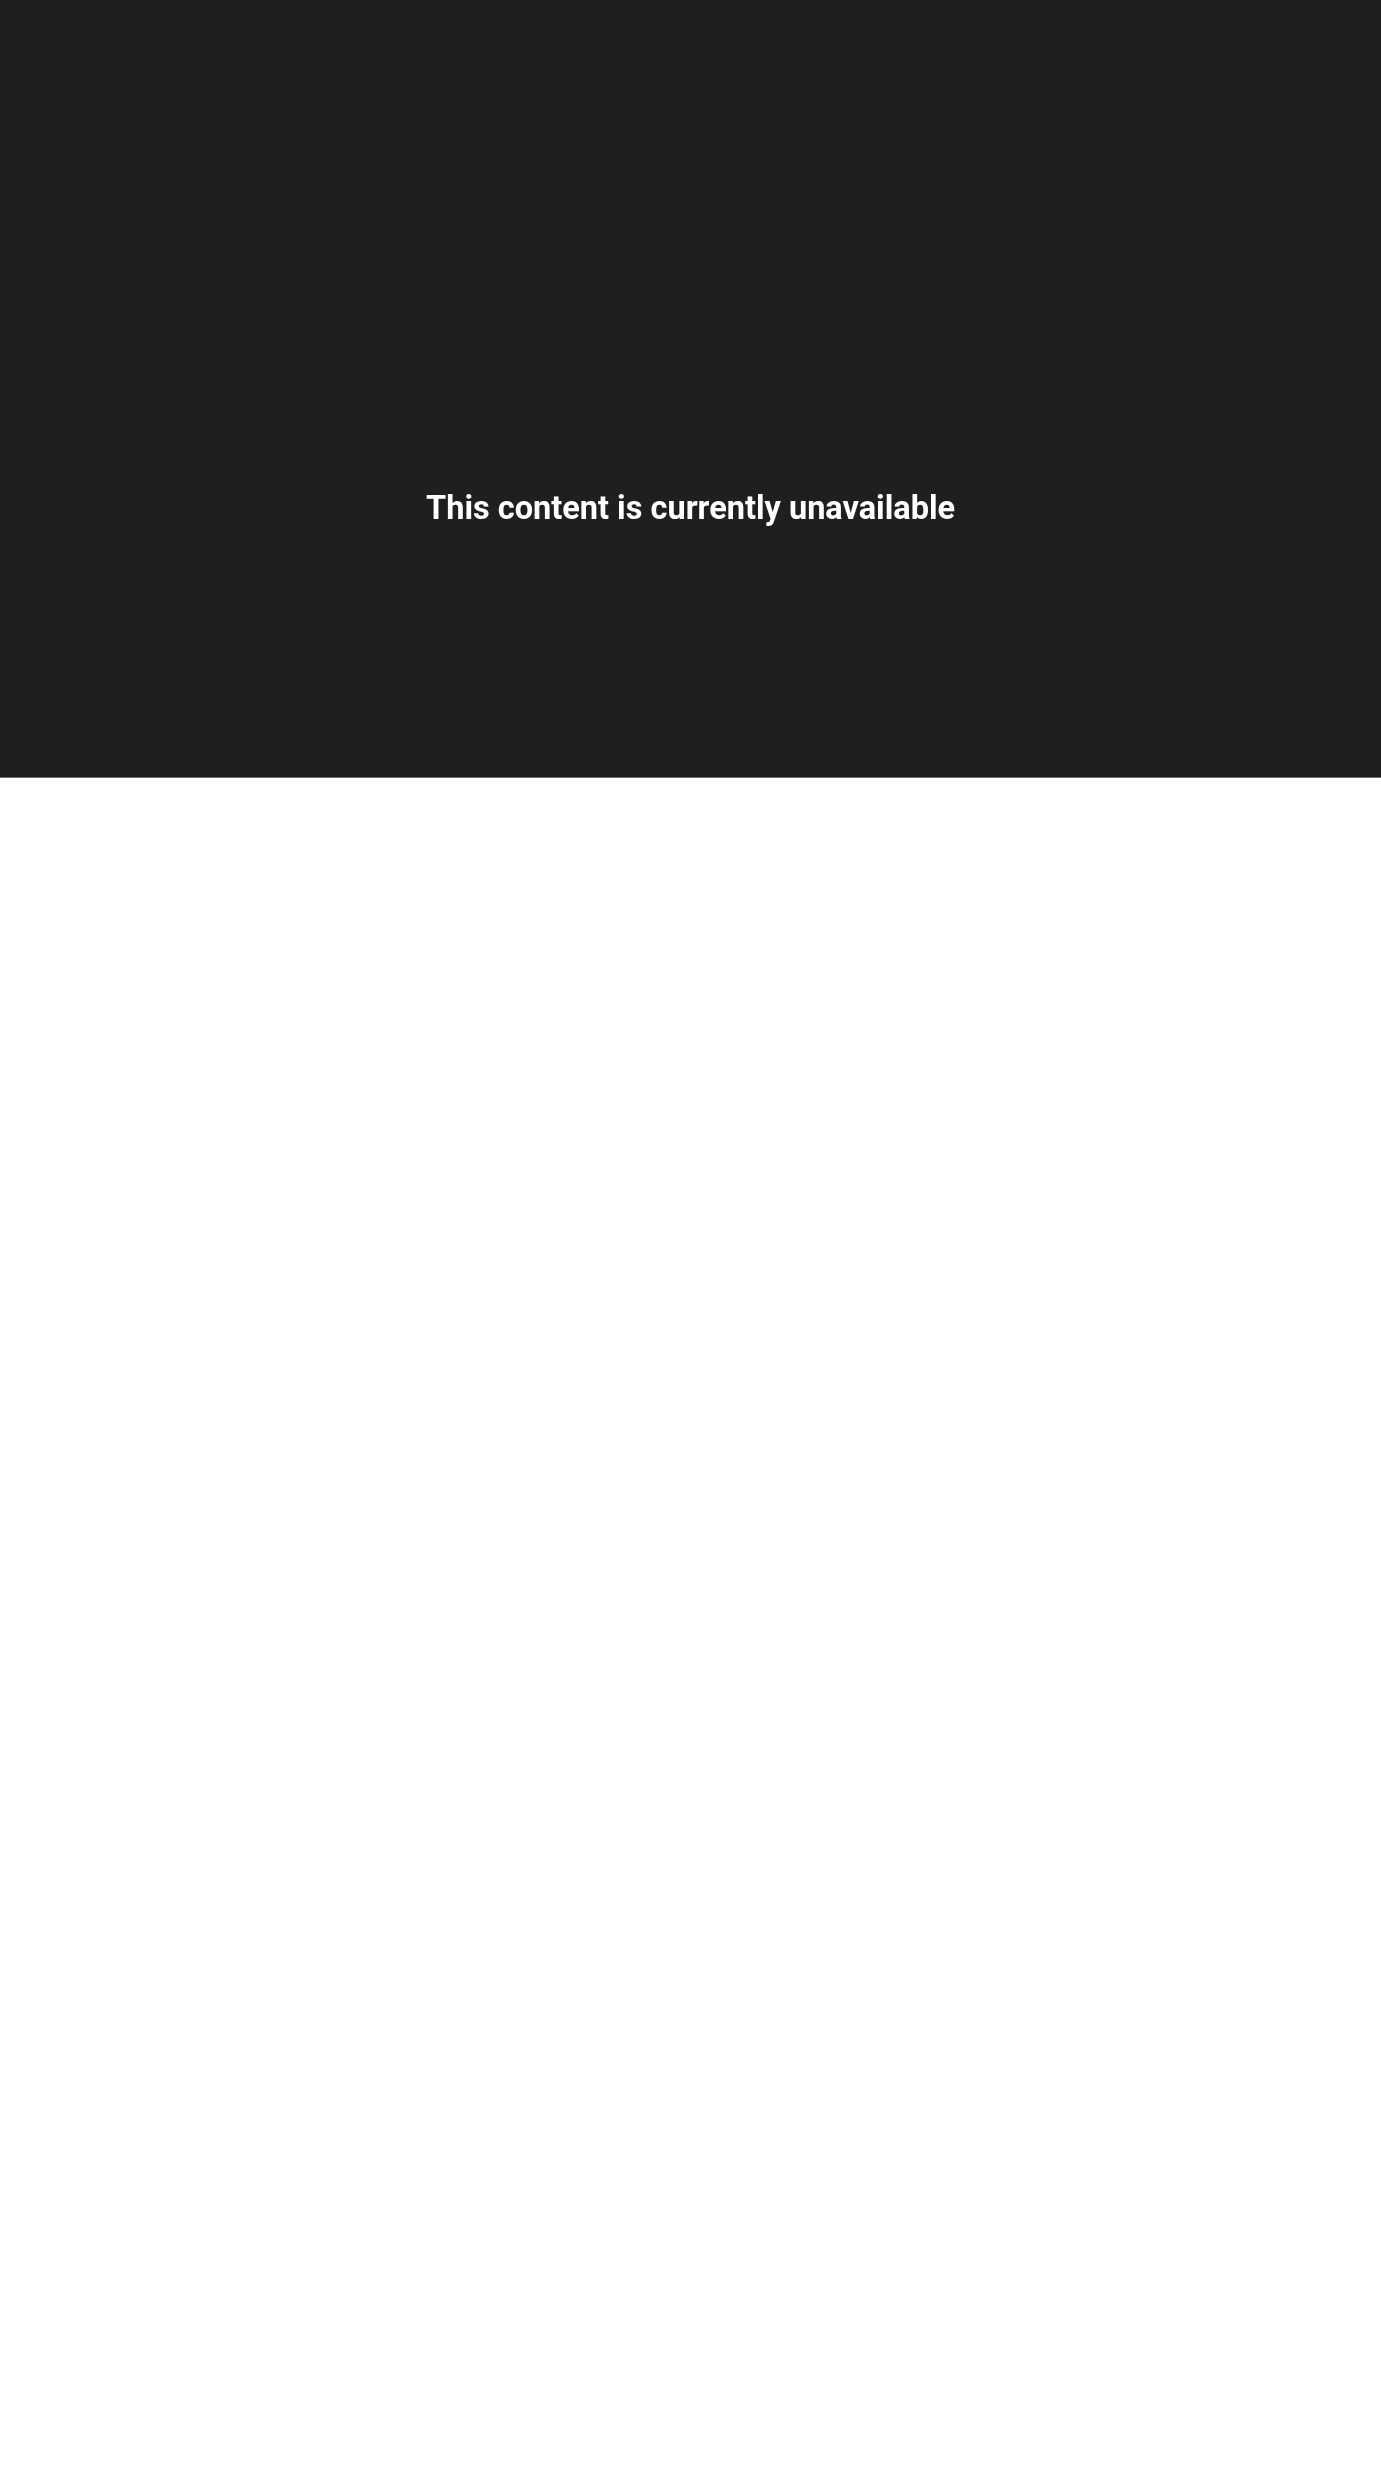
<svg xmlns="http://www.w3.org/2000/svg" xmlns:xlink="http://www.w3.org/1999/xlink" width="1381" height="2485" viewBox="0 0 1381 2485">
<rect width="100%" height="100%" fill="#ffffff"/>
<image xlink:href="image0.png" x="0" y="0" width="1381" height="778"/>
</svg>
